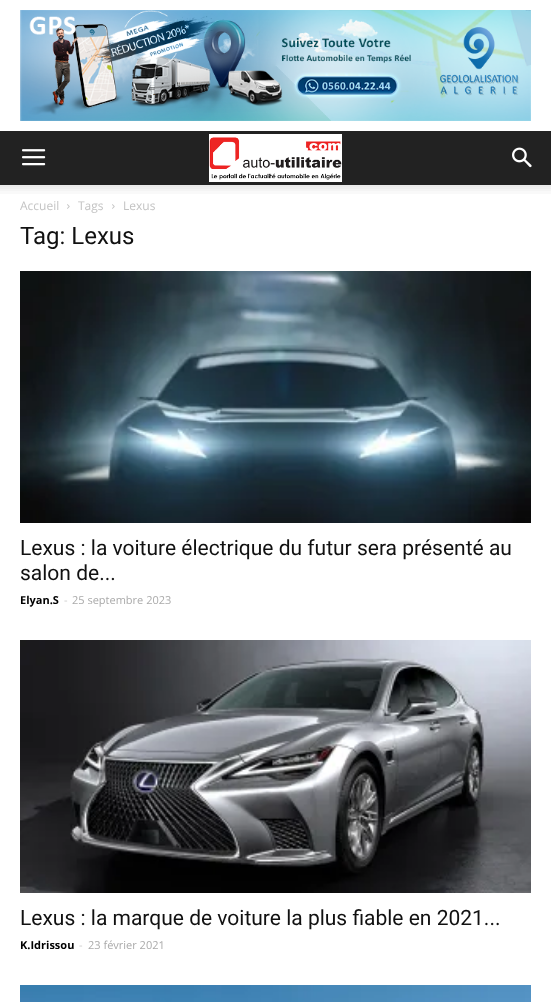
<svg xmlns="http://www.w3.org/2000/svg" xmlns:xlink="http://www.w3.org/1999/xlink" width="551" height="1002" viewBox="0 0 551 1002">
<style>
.cls-1{font:12px Open Sans;fill:#c3c3c3}
.cls-2{font:24px Roboto;fill:#111111}
.cls-3{font:21px Roboto;fill:#111111}
.cls-4{font:bold 11px Open Sans;fill:#000000}
.cls-5{font:11px Open Sans;fill:#cccccc}
.cls-6{font:11px Open Sans;fill:#aaaaaa}
</style>
<rect width="100%" height="100%" fill="#ffffff"/>
<image xlink:href="image0.png" x="20" y="10" width="511" height="111"/>
<rect fill="#222222" x="0" y="131" width="551" height="54"/>
<image xlink:href="image1.png" x="22" y="149" width="24" height="17"/>
<image xlink:href="image2.png" x="209" y="134" width="133" height="48"/>
<image xlink:href="image3.png" x="512" y="147" width="20" height="21"/>
<image xlink:href="image4.png" x="0" y="185" width="551" height="9"/>
<image xlink:href="image5.png" x="67" y="204" width="3" height="5"/>
<image xlink:href="image5.png" x="112" y="204" width="3" height="5"/>
<image xlink:href="image6.png" x="20" y="271" width="511" height="252"/>
<image xlink:href="image7.png" x="20" y="640" width="511" height="253"/>
<image xlink:href="image8.png" x="20" y="985" width="511" height="17"/>
<text class="cls-1" x="20" y="210">Accueil</text>
<text class="cls-1" x="78" y="210">Tags</text>
<text class="cls-1" x="123" y="210">Lexus</text>
<text class="cls-2" x="20" y="244">Tag: Lexus</text>
<text class="cls-3"><tspan x="20" y="555">Lexus : la voiture électrique du futur sera présenté au</tspan><tspan x="20" y="580">salon de...</tspan></text>
<text class="cls-4" x="20" y="604">Elyan.S</text>
<text class="cls-5" x="64" y="604">-</text>
<text class="cls-6" x="72" y="604">25 septembre 2023</text>
<text class="cls-3" x="20" y="925">Lexus : la marque de voiture la plus fiable en 2021...</text>
<text class="cls-4" x="20" y="949">K.Idrissou</text>
<text class="cls-5" x="79" y="949">-</text>
<text class="cls-6" x="88" y="949">23 février 2021</text>
</svg>
